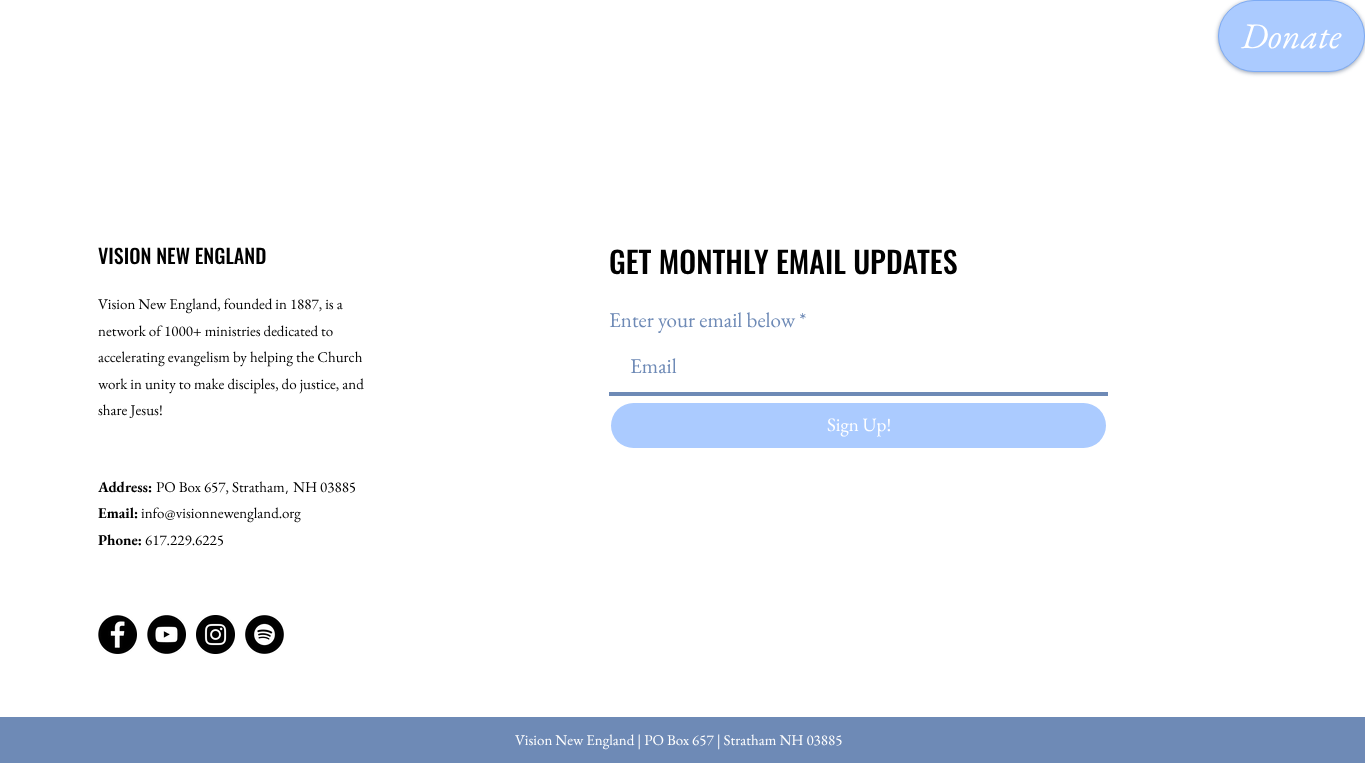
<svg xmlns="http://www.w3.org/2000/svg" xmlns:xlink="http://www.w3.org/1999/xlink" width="1365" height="763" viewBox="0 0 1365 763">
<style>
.cls-1{font:italic 36px EB Garamond;fill:#ffffff}
.cls-2{font:500 20px Oswald;fill:#000000}
.cls-3{font:15px EB Garamond;fill:#000000}
.cls-4{font:bold 15px EB Garamond;fill:#000000}
.cls-5{font:300 15px 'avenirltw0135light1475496';fill:#000000}
.cls-6{font:500 30px Oswald;fill:#000000}
.cls-7{font:21px EB Garamond;fill:#6e8ab6}
.cls-8{font:19px EB Garamond;fill:#ffffff}
.cls-9{font:15px EB Garamond;fill:#ffffff}
</style>
<rect width="100%" height="100%" fill="#ffffff"/>
<rect fill="#495c79" fill-opacity="0.6" filter="blur(2px)" x="1218" y="1" width="147" height="72" rx="36"/>
<rect fill="#abcbff" stroke="#7dabf4" x="1218.5" y="0.5" width="146" height="71" rx="35.5"/>
<image xlink:href="image0.png" x="98" y="615" width="39" height="39"/>
<image xlink:href="image1.png" x="147" y="615" width="39" height="39"/>
<image xlink:href="image2.png" x="196" y="615" width="39" height="39"/>
<image xlink:href="image3.png" x="245" y="615" width="39" height="39"/>
<rect fill="#6e8ab6" x="609" y="392" width="499" height="4"/>
<rect fill="#abcbff" x="611" y="403" width="495" height="45" rx="22.5"/>
<rect fill="#6e8ab6" x="0" y="717" width="1365" height="46"/>
<text class="cls-1" x="1241" y="48">Donate</text>
<text class="cls-2" x="98" y="264">VISION NEW ENGLAND</text>
<text class="cls-3"><tspan x="98" y="309">Vision New England, founded in 1887, is a</tspan><tspan x="98" y="336">network of 1000+ ministries dedicated to</tspan><tspan x="98" y="362">accelerating evangelism by helping the Church</tspan><tspan x="98" y="389">work in unity to make disciples, do justice, and</tspan><tspan x="98" y="415">share Jesus!</tspan></text>
<text class="cls-4" x="98" y="492">Address:</text>
<text class="cls-3" x="156" y="492">PO Box 657, Stratham</text>
<text class="cls-5" x="285" y="492">,</text>
<text class="cls-3" x="293" y="492">NH 03885</text>
<text class="cls-4" x="98" y="518">Email:</text>
<text class="cls-3" x="141" y="518">info@visionnewengland.org</text>
<text class="cls-4" x="98" y="545">Phone:</text>
<text class="cls-3" x="145" y="545">617.229.6225</text>
<text class="cls-6" x="609" y="274">GET MONTHLY EMAIL UPDATES</text>
<text class="cls-7" x="609" y="327">Enter your email below *</text>
<text class="cls-7" x="630" y="373">Email</text>
<text class="cls-8" x="827" y="431">Sign Up!</text>
<text class="cls-9" x="515" y="745">Vision New England | PO Box 657 | Stratham NH 03885</text>
</svg>
